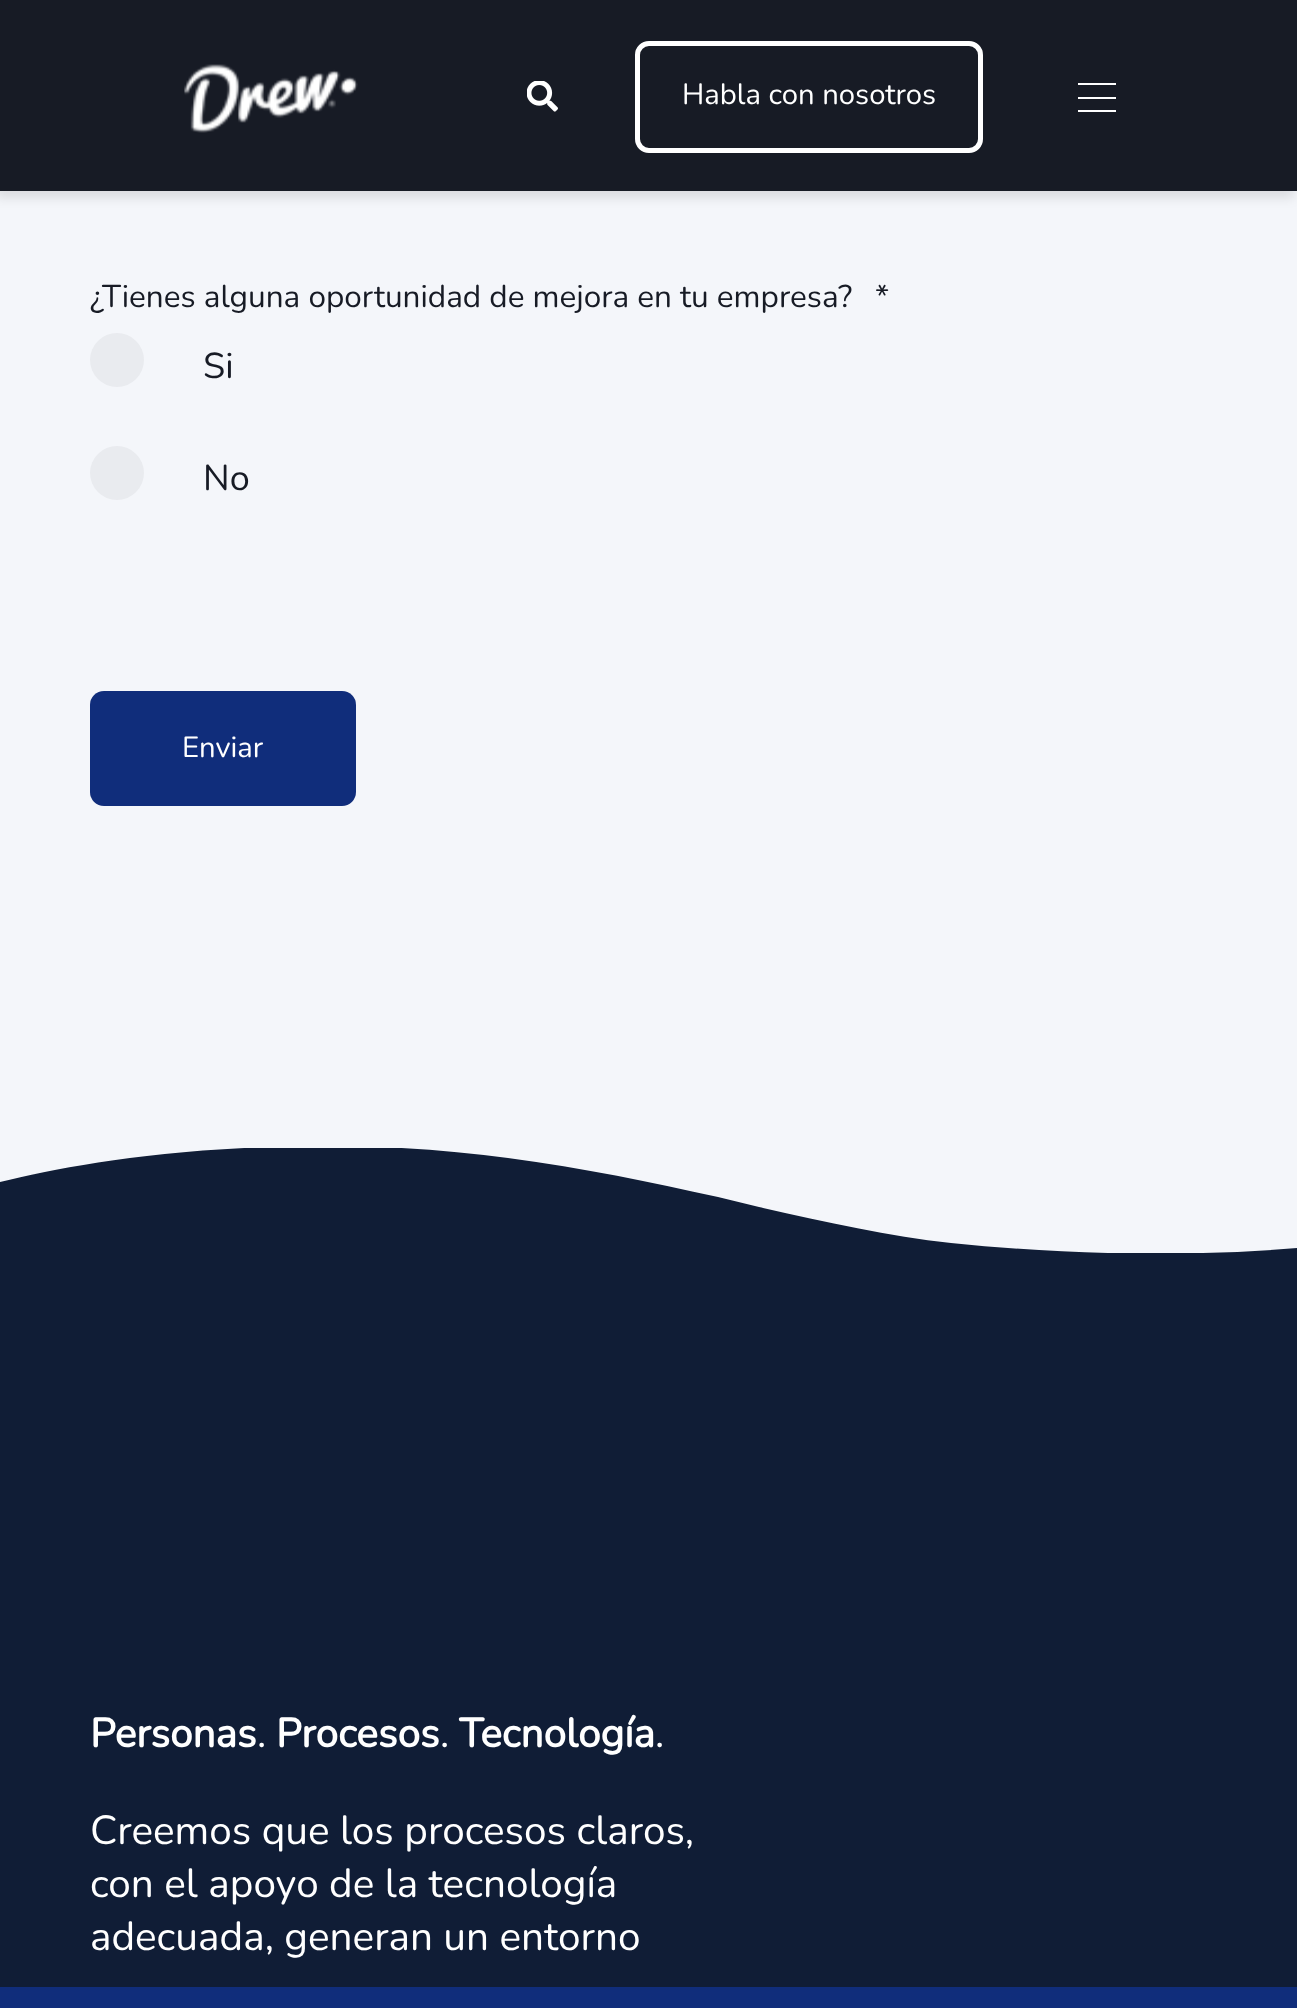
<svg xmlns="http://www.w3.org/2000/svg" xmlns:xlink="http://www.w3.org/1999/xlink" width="1297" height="2008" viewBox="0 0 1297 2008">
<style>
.cls-1{font:29.25px Nunito;fill:#ffffff}
.cls-2{font:31.5px Nunito;fill:#171b25}
.cls-3{font:36px Nunito;fill:#171b25}
.cls-4{font:bold 40.5px Nunito;fill:#ffffff}
.cls-5{font:40.5px Nunito;fill:#ffffff}
</style>
<defs>
<clipPath id="clip1"><rect x="0" y="1148" width="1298" height="105"/></clipPath>
</defs>
<rect width="100%" height="100%" fill="#f4f6fa"/>
<rect fill="#000000" fill-opacity="0.1" filter="blur(5.5px)" x="-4" y="7" width="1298" height="191"/>
<rect fill="#171b25" x="0" y="0" width="1297" height="191"/>
<image xlink:href="image0.png" x="184" y="64" width="174" height="69"/>
<image xlink:href="image1.png" x="527" y="81" width="31" height="31"/>
<rect fill="none" stroke="#ffffff" stroke-width="5" x="637.5" y="43.5" width="343" height="107" rx="11.5"/>
<rect fill="#ffffff" x="1078" y="83" width="38" height="2"/>
<rect fill="#ffffff" x="1078" y="97" width="38" height="2"/>
<rect fill="#ffffff" x="1078" y="110" width="38" height="2"/>
<circle fill="#e9ebef" cx="117" cy="360" r="27"/>
<circle fill="#e9ebef" cx="117" cy="473" r="27"/>
<rect fill="#102d7b" x="90" y="691" width="266" height="115" rx="14"/>
<rect fill="#102d7b" x="0" y="1987" width="1297" height="21"/>
<rect fill="#101d36" x="0" y="1148" width="1297" height="839"/>
<g clip-path="url(#clip1)">
<path fill="#f4f6fa" fill-rule="evenodd" d="M329 1146C480 1146 605 1172 718 1197L759 1207C825 1222 888 1236 951 1243C1069 1255 1186 1257 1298 1248V1145H0V1182C63 1167 166 1146 329 1146Z"/>
</g>
<text class="cls-1" x="682" y="104">Habla con nosotros</text>
<text class="cls-2" x="90" y="307">¿Tienes alguna oportunidad de mejora en tu empresa?</text>
<text class="cls-2" x="875" y="307">*</text>
<text class="cls-3" x="203" y="378">Si</text>
<text class="cls-3" x="203" y="490">No</text>
<text class="cls-1" x="182" y="757">Enviar</text>
<text class="cls-4" x="90" y="1747">Personas</text>
<text class="cls-5" x="257" y="1747">.</text>
<text class="cls-4" x="276" y="1747">Procesos</text>
<text class="cls-5" x="440" y="1747">.</text>
<text class="cls-4" x="459" y="1747">Tecnología</text>
<text class="cls-5" x="655" y="1747">.</text>
<text class="cls-5"><tspan x="90" y="1844">Creemos que los procesos claros,</tspan><tspan x="90" y="1897">con el apoyo de la tecnología</tspan><tspan x="90" y="1950">adecuada, generan un entorno</tspan></text>
</svg>
